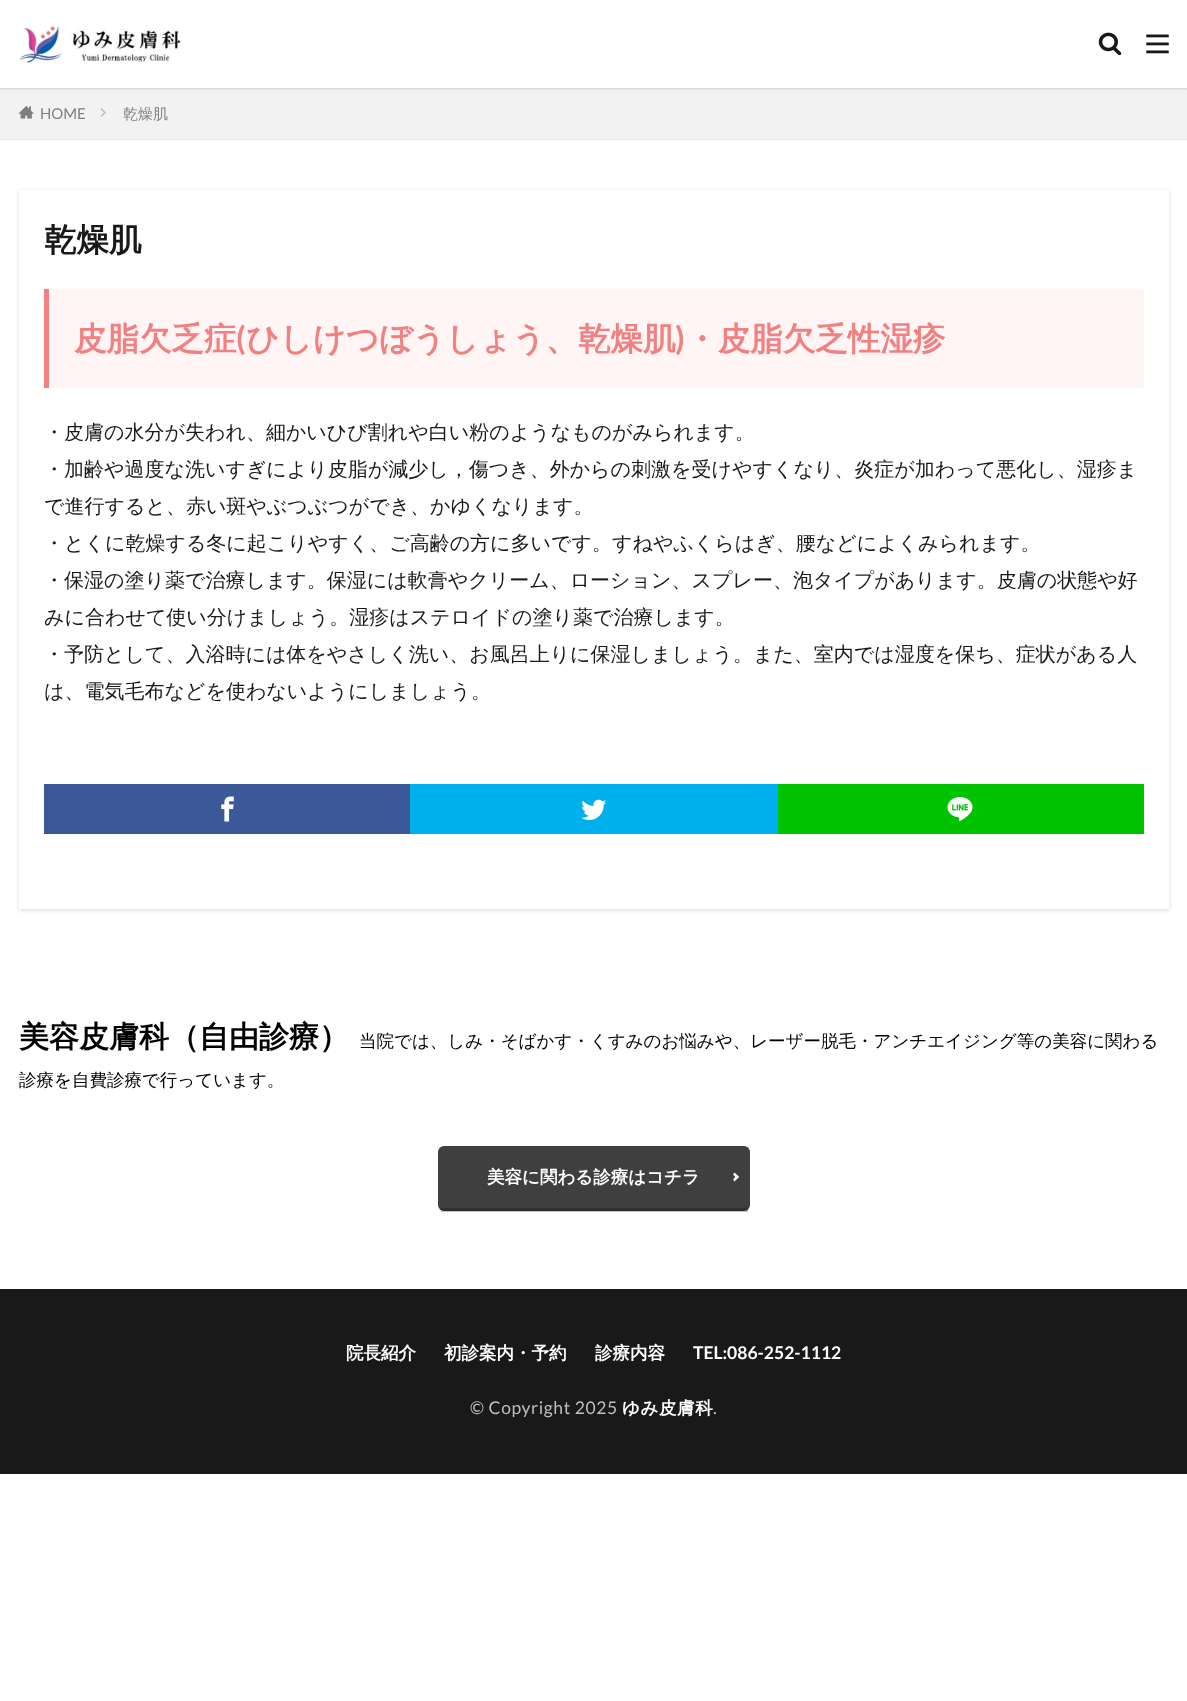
<svg xmlns="http://www.w3.org/2000/svg" xmlns:xlink="http://www.w3.org/1999/xlink" width="1187" height="1701" viewBox="0 0 1187 1701">
<style>
.cls-1{font:15px Lato;fill:#7f7f7f}
.cls-2{font:500 15px WenQuanYi Zen Hei;fill:#7f7f7f}
.cls-3{font:bold 32.5px WenQuanYi Zen Hei;fill:#191919}
.cls-4{font:bold 32.5px WenQuanYi Zen Hei;fill:#f28080}
.cls-5{font:bold 32.5px Lato;fill:#f28080}
.cls-6{font:500 20px WenQuanYi Zen Hei;fill:#191919}
.cls-7{font:bold 30px WenQuanYi Zen Hei;fill:#000000}
.cls-8{font:500 17.5px WenQuanYi Zen Hei;fill:#000000}
.cls-9{font:bold 17.5px WenQuanYi Zen Hei;fill:#ffffff}
.cls-10{font:bold 17.5px Lato;fill:#ffffff}
.cls-11{font:17.5px Lato;letter-spacing:0.6px;fill:#bfbfbf}
.cls-12{font:bold 17.5px WenQuanYi Zen Hei;letter-spacing:0.6px;fill:#ffffff}
</style>
<rect width="100%" height="100%" fill="#ffffff"/>
<rect fill="#f2f2f2" x="0" y="88" width="1187" height="51"/>
<rect fill="#000000" fill-opacity="0.15" filter="blur(1px)" x="0" y="1" width="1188" height="88"/>
<rect fill="#ffffff" x="0" y="0" width="1187" height="88"/>
<image xlink:href="image0.png" x="19" y="25" width="162" height="38"/>
<image xlink:href="image1.png" x="1098" y="32" width="24" height="24"/>
<image xlink:href="image2.png" x="1146" y="34" width="23" height="20"/>
<rect fill="#e6e6e6" x="0" y="139" width="1187" height="1"/>
<image xlink:href="image3.png" x="18" y="106" width="16" height="13"/>
<path fill="#bfbfbf" d="M101.5 108L106 112.5L105 113.5L100.5 109Z"/>
<path fill="#bfbfbf" d="M105 111.5L106 112.5L101.5 117L100.5 116Z"/>
<rect fill="#000000" fill-opacity="0.15" filter="blur(2px)" x="19" y="191" width="1150" height="719"/>
<rect fill="#ffffff" x="19" y="190" width="1150" height="719"/>
<rect fill="#fff5f5" x="49" y="289" width="1095" height="99"/>
<rect fill="#f28080" x="44" y="289" width="5" height="99"/>
<rect fill="#3b5998" x="44" y="784" width="366" height="50"/>
<image xlink:href="image4.png" x="221" y="796" width="13" height="26"/>
<rect fill="#00b0ed" x="410" y="784" width="368" height="50"/>
<image xlink:href="image5.png" x="581" y="799" width="26" height="21"/>
<rect fill="#00c300" x="778" y="784" width="366" height="50"/>
<image xlink:href="image6.png" x="947" y="797" width="26" height="25"/>
<rect fill="#3f3f3f" x="438" y="1146" width="312" height="65" rx="6"/>
<rect fill="#000000" fill-opacity="0.25" x="441" y="1208" width="307" height="4"/>
<path fill="#ffffff" d="M734.5 1172.5L739 1177L737 1178.5L733 1174.5Z"/>
<path fill="#ffffff" d="M737 1175L739 1177L734.5 1181.5L733 1179.5Z"/>
<rect fill="#191919" x="0" y="1289" width="1187" height="185"/>
<text class="cls-1" x="40" y="119">HOME</text>
<text class="cls-2" x="123" y="119">乾燥肌</text>
<text class="cls-3" x="44" y="251">乾燥肌</text>
<text class="cls-4" x="74" y="350">皮脂欠乏症 ひしけつぼうしょう、乾燥肌 ・皮脂欠乏性湿疹</text>
<text class="cls-5" x="236" y="350">(</text>
<text class="cls-5" x="675" y="350">)</text>
<text class="cls-6"><tspan x="44" y="439">・皮膚の水分が失われ、細かいひび割れや白い粉のようなものがみられます。</tspan><tspan x="44" y="476">・加齢や過度な洗いすぎにより皮脂が減少し，傷つき、外からの刺激を受けやすくなり、炎症が加わって悪化し、湿疹ま</tspan><tspan x="44" y="513">で進行すると、赤い斑やぶつぶつができ、かゆくなります。</tspan><tspan x="44" y="550">・とくに乾燥する冬に起こりやすく、ご高齢の方に多いです。すねやふくらはぎ、腰などによくみられます。</tspan><tspan x="44" y="587">・保湿の塗り薬で治療します。保湿には軟膏やクリーム、ローション、スプレー、泡タイプがあります。皮膚の状態や好</tspan><tspan x="44" y="624">みに合わせて使い分けましょう。湿疹はステロイドの塗り薬で治療します。</tspan><tspan x="44" y="661">・予防として、入浴時には体をやさしく洗い、お風呂上りに保湿しましょう。また、室内では湿度を保ち、症状がある人</tspan><tspan x="44" y="698">は、電気毛布などを使わないようにしましょう。</tspan></text>
<text class="cls-7" x="19" y="1047">美容皮膚科（自由診療）</text>
<text class="cls-8" x="359" y="1047">当院では、しみ・そばかす・くすみのお悩みや、レーザー脱毛・アンチエイジング等の美容に関わる</text>
<text class="cls-8" x="19" y="1086">診療を自費診療で行っています。</text>
<text class="cls-9" x="487" y="1183">美容に関わる診療はコチラ</text>
<text class="cls-9" x="346" y="1359">院長紹介</text>
<text class="cls-9" x="444" y="1359">初診案内・予約</text>
<text class="cls-9" x="595" y="1359">診療内容</text>
<text class="cls-10" x="693" y="1359">TEL:086-252-1112</text>
<text class="cls-11" x="470" y="1414">© Copyright 2025</text>
<text class="cls-12" x="622" y="1414">ゆみ皮膚科</text>
<text class="cls-11" x="713" y="1414">.</text>
</svg>
